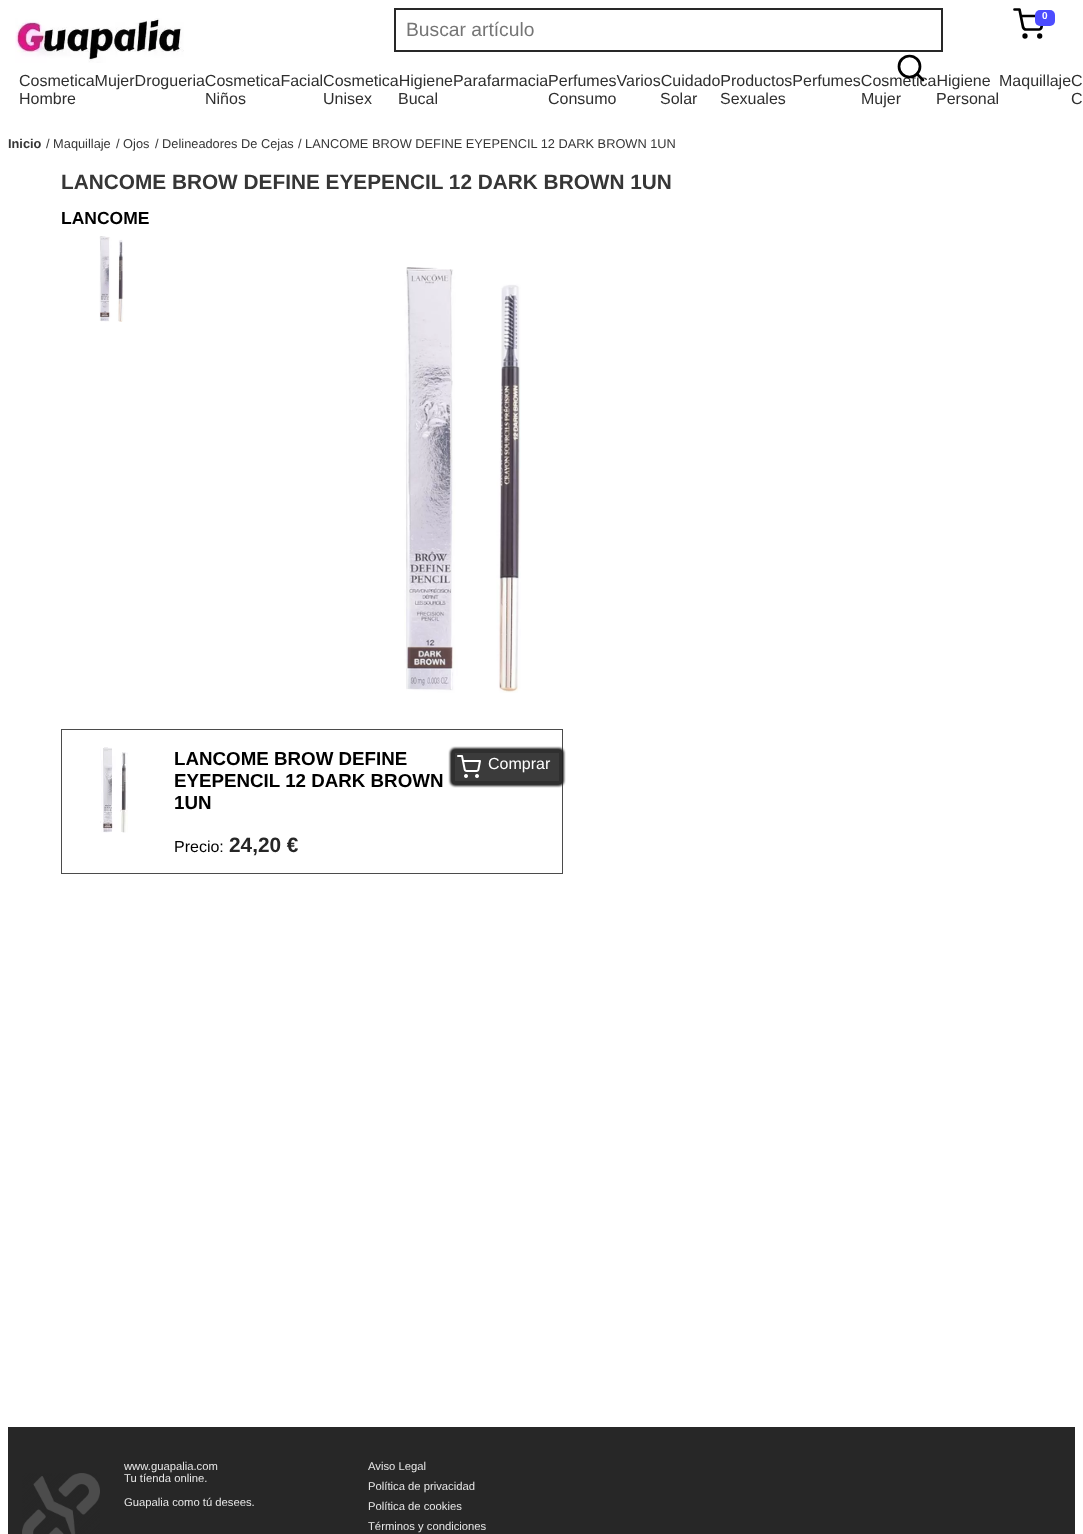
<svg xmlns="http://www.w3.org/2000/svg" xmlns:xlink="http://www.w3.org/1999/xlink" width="1083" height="1534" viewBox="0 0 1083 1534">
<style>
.cls-1{font:bold 10px Liberation Sans;fill:#ffffff}
.cls-2{font:19.25px Liberation Sans;fill:#757575}
.cls-3{font:16px Liberation Sans;fill:#2f2f2f}
.cls-4{font:bold 12.8px Liberation Sans;fill:#363636}
.cls-5{font:12.8px Liberation Sans;fill:#363636}
.cls-6{font:bold 20.8px Liberation Sans;fill:#363636}
.cls-7{font:bold 17.5px Liberation Sans;fill:#000000}
.cls-8{font:bold 18.75px Liberation Sans;fill:#000000}
.cls-9{font:16px Liberation Sans;fill:#000000}
.cls-10{font:bold 20.8px Liberation Sans;fill:#262626}
.cls-11{font:16px Liberation Sans;fill:#ffffff}
.cls-12{font:11.25px Liberation Sans;fill:#e7e7e7}
</style>
<rect width="100%" height="100%" fill="#ffffff"/>
<path fill="none" stroke="#000000" stroke-width="2.7" stroke-linecap="round" stroke-linejoin="round" d="M1014.5 9.5H1019.5L1023 27C1023.5 28.5 1024.5 29.5 1026 29.5H1039C1040 29.5 1041.5 28.5 1041.5 27L1043.5 16H1021"/>
<rect fill="#4d4dff" x="1035" y="10" width="20" height="16" rx="5"/>
<circle fill="none" stroke="#000000" stroke-width="2.7" cx="1025" cy="36" r="1.3"/>
<circle fill="none" stroke="#000000" stroke-width="2.7" cx="1039.7" cy="36" r="1.3"/>
<image xlink:href="image0.png" x="15" y="18" width="169" height="45"/>
<rect fill="none" stroke="#282828" stroke-width="2" x="395" y="9" width="547" height="42"/>
<image xlink:href="image1.png" x="99" y="236" width="25" height="86"/>
<image xlink:href="image2.png" x="404" y="267" width="117" height="426"/>
<rect fill="none" stroke="#4b4b4b" x="61.5" y="729.5" width="501" height="144"/>
<image xlink:href="image3.png" x="100" y="747" width="28" height="86"/>
<rect fill="#202020" filter="blur(1px)" x="450" y="748" width="114" height="38" rx="5"/>
<rect fill="#3b3b3b" stroke="#2f2f2f" stroke-width="3" x="453.5" y="751.5" width="107" height="31" rx="1.5"/>
<image xlink:href="image4.png" x="457" y="755" width="24" height="23"/>
<rect fill="#272727" x="8" y="1427" width="1067" height="107"/>
<image xlink:href="image5.png" x="22" y="1473" width="78" height="61"/>
<text class="cls-1" x="1042" y="19">0</text>
<text class="cls-2" x="406" y="36">Buscar artículo</text>
<text class="cls-3" x="19" y="86">CosmeticaMujerDrogueriaCosmeticaFacialCosmeticaHigieneParafarmaciaPerfumesVariosCuidadoProductosPerfumesCosmeticaHigiene</text>
<circle fill="none" stroke="#000000" stroke-width="2.7" cx="909.5" cy="66.5" r="10.5"/>
<path fill="none" stroke="#000000" stroke-width="2.7" stroke-linecap="round" stroke-linejoin="round" d="M923 80L917 74"/>
<text class="cls-3" x="19" y="104">Hombre</text>
<text class="cls-3" x="999" y="86">MaquillajeC</text>
<text class="cls-3" x="205" y="104">Niños</text>
<text class="cls-3" x="323" y="104">Unisex</text>
<text class="cls-3" x="398" y="104">Bucal</text>
<text class="cls-3" x="548" y="104">Consumo</text>
<text class="cls-3" x="660" y="104">Solar</text>
<text class="cls-3" x="720" y="104">Sexuales</text>
<text class="cls-3" x="861" y="104">Mujer</text>
<text class="cls-3" x="936" y="104">Personal</text>
<text class="cls-3" x="1071" y="104">C</text>
<text class="cls-4" x="8" y="148">Inicio</text>
<text class="cls-5" x="46" y="148">/ Maquillaje</text>
<text class="cls-5" x="116" y="148">/ Ojos</text>
<text class="cls-5" x="155" y="148">/ Delineadores De Cejas</text>
<text class="cls-5" x="298" y="148">/ LANCOME BROW DEFINE EYEPENCIL 12 DARK BROWN 1UN</text>
<text class="cls-6" x="61" y="189">LANCOME BROW DEFINE EYEPENCIL 12 DARK BROWN 1UN</text>
<text class="cls-7" x="61" y="224">LANCOME</text>
<text class="cls-8"><tspan x="174" y="765">LANCOME BROW DEFINE</tspan><tspan x="174" y="787">EYEPENCIL 12 DARK BROWN</tspan><tspan x="174" y="809">1UN</tspan></text>
<text class="cls-9" x="174" y="852">Precio:</text>
<text class="cls-10" x="229" y="852">24,20 €</text>
<text class="cls-11" x="488" y="769">Comprar</text>
<text class="cls-12"><tspan x="124" y="1470">www.guapalia.com</tspan><tspan x="124" y="1482">Tu tíenda online.</tspan></text>
<text class="cls-12" x="124" y="1506">Guapalia como tú desees.</text>
<text class="cls-12"><tspan x="368" y="1470">Aviso Legal</tspan><tspan x="368" y="1490">Política de privacidad</tspan><tspan x="368" y="1510">Política de cookies</tspan><tspan x="368" y="1530">Términos y condiciones</tspan></text>
</svg>
